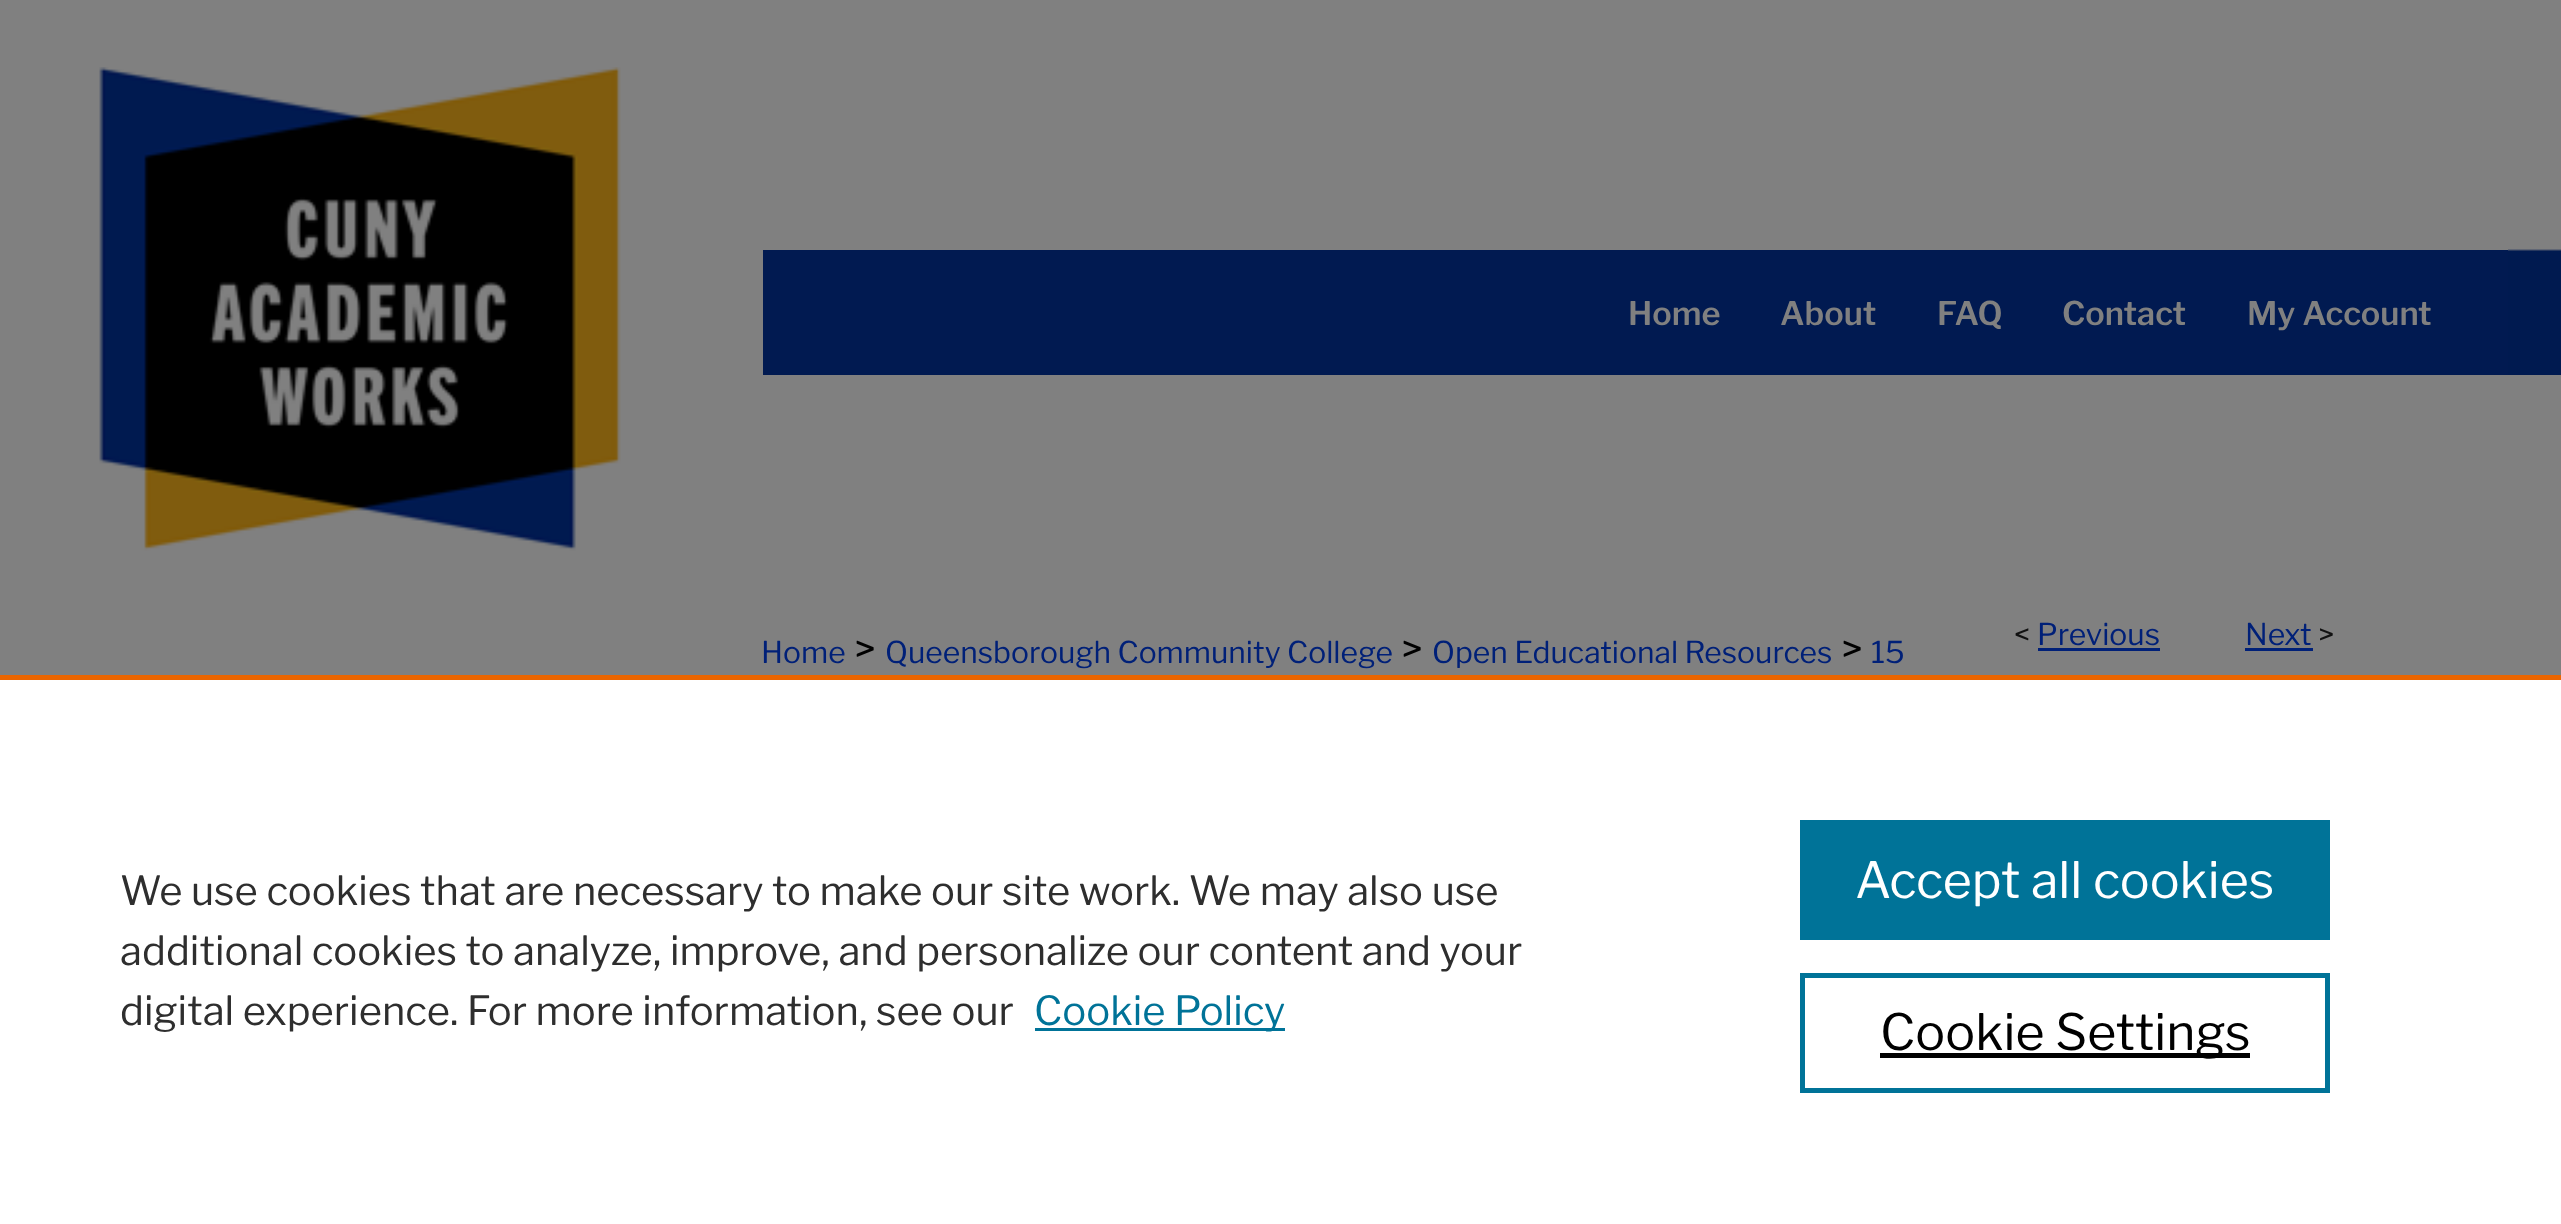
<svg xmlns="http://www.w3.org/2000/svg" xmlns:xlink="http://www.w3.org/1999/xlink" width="2561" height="1224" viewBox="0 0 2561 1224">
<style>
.cls-1{font:600 32.5px Libre Franklin;fill:#808080}
.cls-2{font:30px Libre Franklin;fill:#111111}
.cls-3{font:30px Libre Franklin;fill:#002078}
.cls-4{font:40px Libre Franklin;fill:#000000}
.cls-5{font:40px Libre Franklin;fill:#2e2e2e}
.cls-6{font:40px Libre Franklin;fill:#007398}
.cls-7{font:50px Libre Franklin;fill:#ffffff}
.cls-8{font:50px Libre Franklin;fill:#000000}
</style>
<rect width="100%" height="100%" fill="#808080"/>
<image xlink:href="image0.png" x="2508" y="249" width="53" height="126"/>
<image xlink:href="image1.png" x="99" y="67" width="522" height="484"/>
<rect fill="#011a51" x="763" y="250" width="1745" height="125"/>
<rect fill="#002078" x="2038" y="648" width="122" height="3"/>
<rect fill="#002078" x="2245" y="648" width="68" height="3"/>
<rect fill="#ffffff" x="0" y="680" width="2561" height="544"/>
<rect fill="#eb6500" x="0" y="675" width="2561" height="5"/>
<rect fill="#007398" x="1035" y="1028" width="250" height="3"/>
<rect fill="#007398" x="1800" y="820" width="530" height="120"/>
<rect fill="none" stroke="#007398" stroke-width="5" x="1802.5" y="975.5" width="525" height="115"/>
<rect fill="#000000" x="1880" y="1053" width="370" height="5"/>
<text class="cls-1" x="1628" y="325">Home</text>
<text class="cls-1" x="1780" y="325">About</text>
<text class="cls-1" x="1937" y="325">FAQ</text>
<text class="cls-1" x="2062" y="325">Contact</text>
<text class="cls-1" x="2247" y="325">My Account</text>
<text class="cls-2" x="2014" y="645">&lt;</text>
<text class="cls-3" x="2037" y="645">Previous</text>
<text class="cls-3" x="2245" y="645">Next</text>
<text class="cls-2" x="2318" y="645">&gt;</text>
<text class="cls-3" x="761" y="663">Home</text>
<text class="cls-4" x="854" y="663">&gt;</text>
<text class="cls-3" x="885" y="663">Queensborough Community College</text>
<text class="cls-4" x="1401" y="663">&gt;</text>
<text class="cls-3" x="1432" y="663">Open Educational Resources</text>
<text class="cls-4" x="1841" y="663">&gt;</text>
<text class="cls-3" x="1871" y="663">15</text>
<text class="cls-5"><tspan x="120" y="905">We use cookies that are necessary to make our site work. We may also use</tspan><tspan x="120" y="965">additional cookies to analyze, improve, and personalize our content and your</tspan><tspan x="120" y="1025">digital experience. For more information, see our</tspan></text>
<text class="cls-6" x="1034" y="1025">Cookie Policy</text>
<text class="cls-7" x="1855" y="898">Accept all cookies</text>
<text class="cls-8" x="1880" y="1050">Cookie Settings</text>
</svg>
